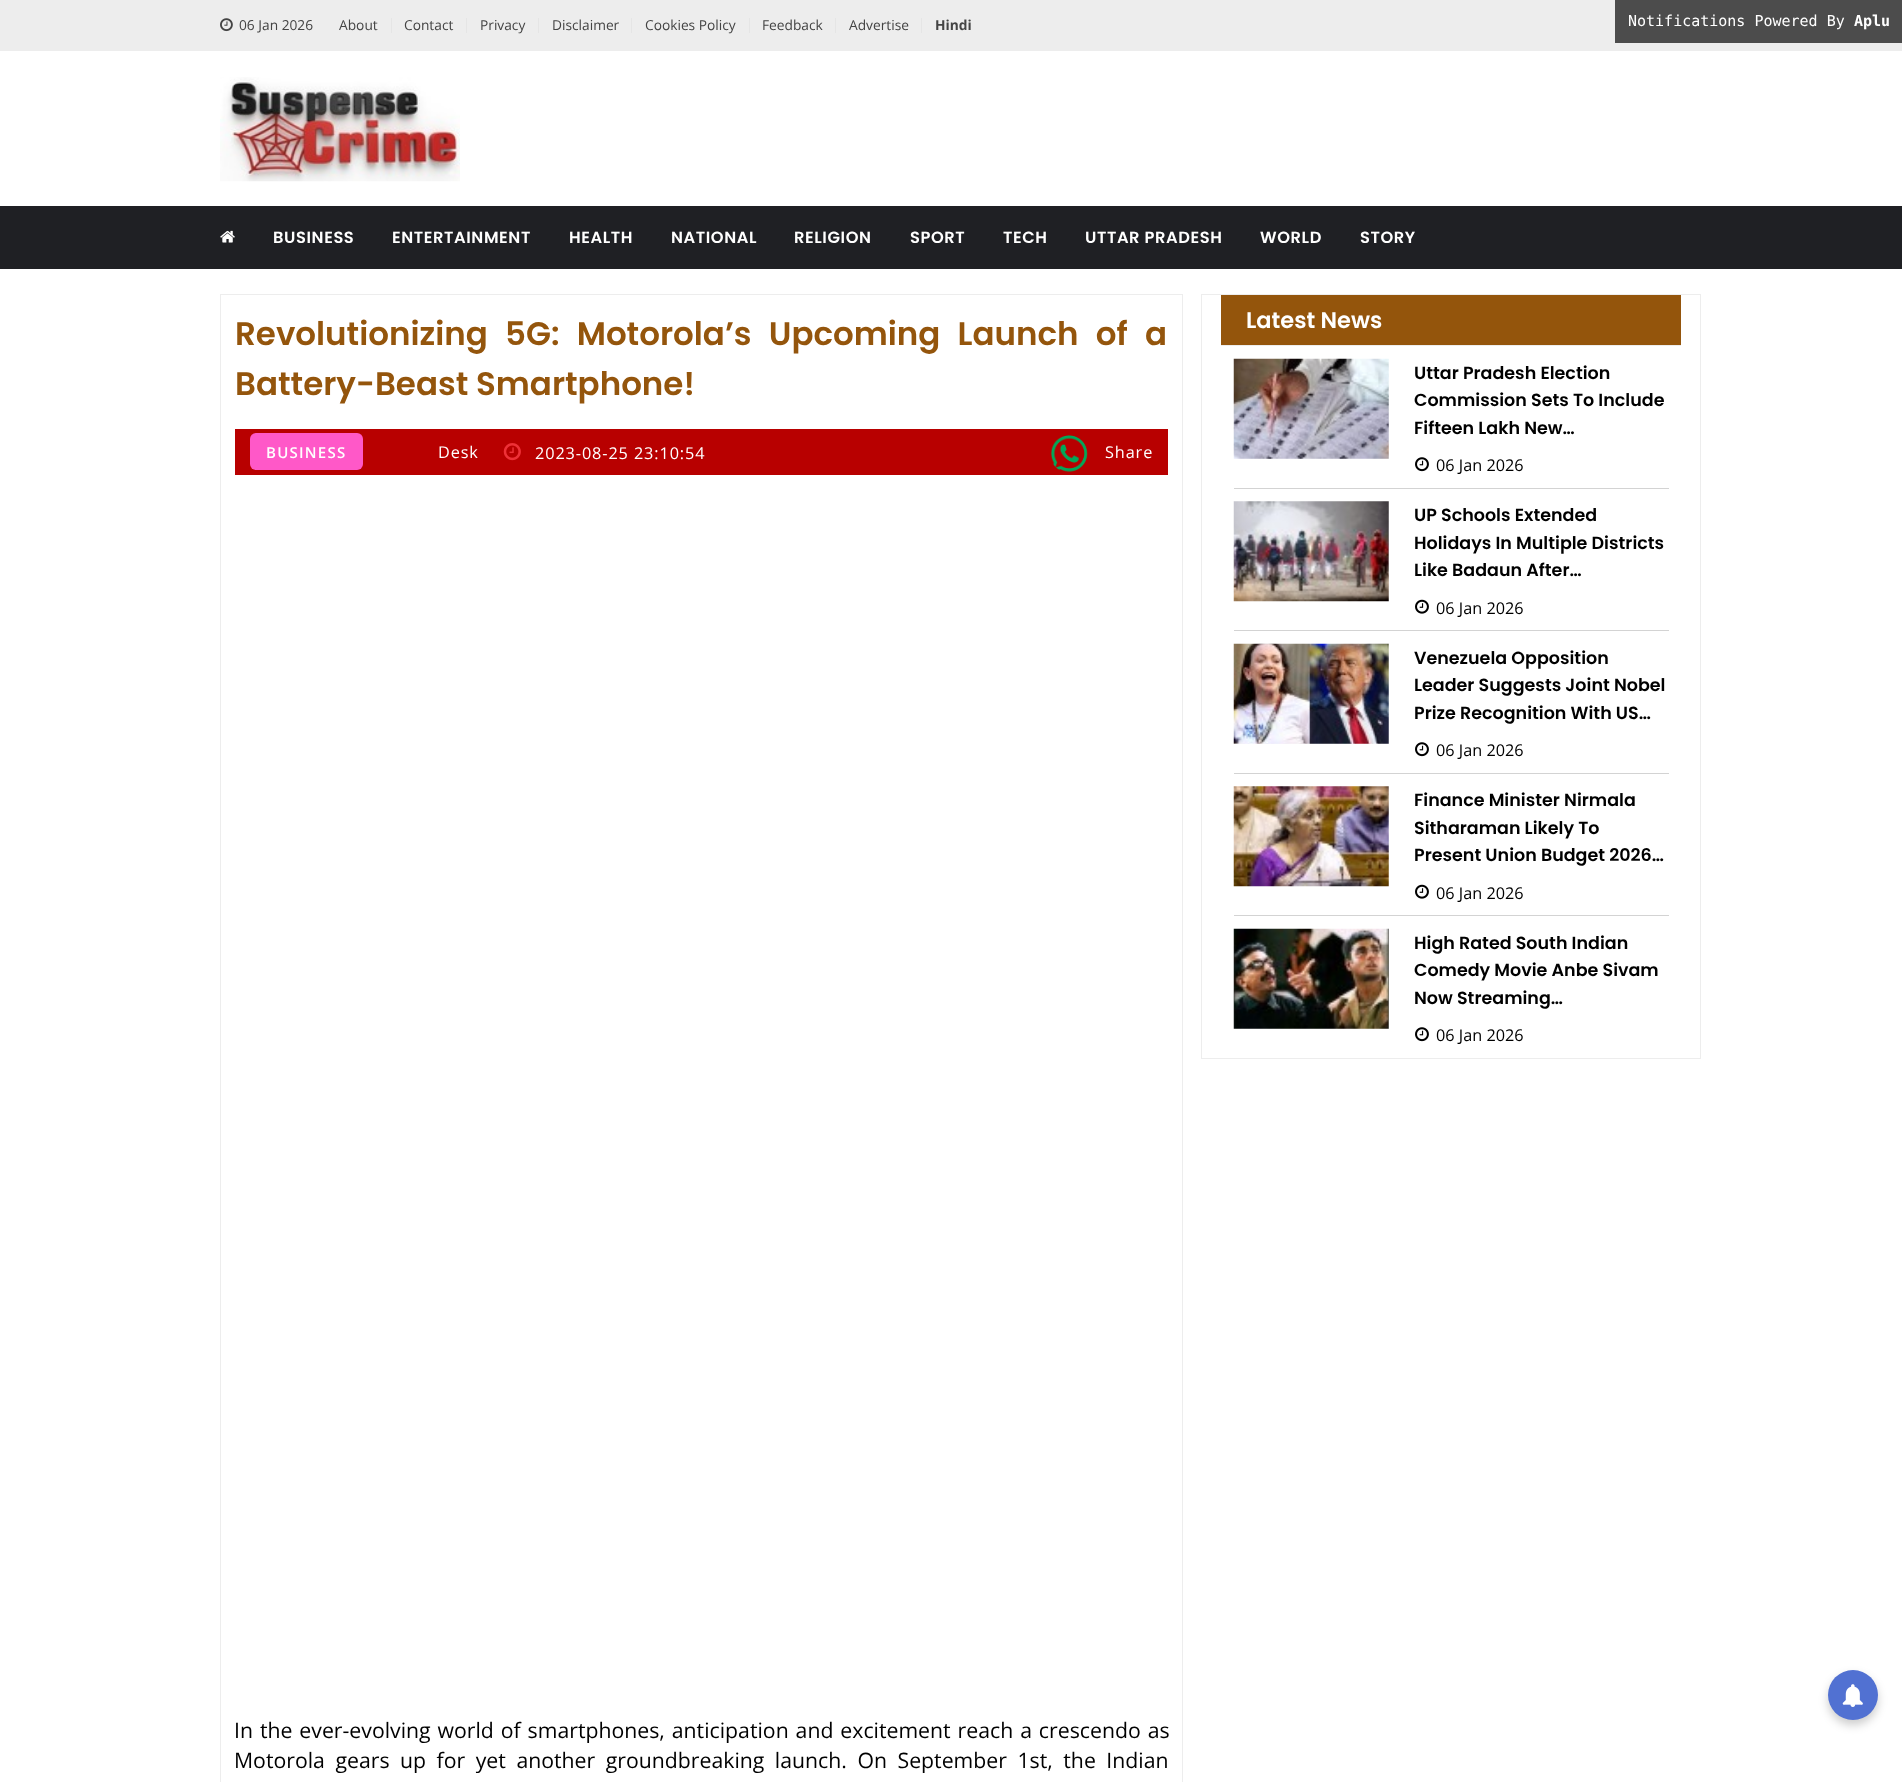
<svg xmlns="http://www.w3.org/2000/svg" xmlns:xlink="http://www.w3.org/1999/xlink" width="1902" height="1782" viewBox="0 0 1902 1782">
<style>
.cls-1{font:13.75px Open Sans;fill:#444444}
.cls-2{font:bold 13.75px Open Sans;fill:#444444}
.cls-3{font:600 16.25px Poppins;letter-spacing:0.6px;fill:#ffffff}
.cls-4{font:600 32.5px Poppins;fill:#94550c}
.cls-5{font:600 15px Open Sans;letter-spacing:1.25px;fill:#ffffff}
.cls-6{font:16.25px Open Sans;letter-spacing:0.9px;fill:#ffffff}
.cls-7{font:21.25px Open Sans;fill:#000000}
.cls-8{font:600 22.5px Poppins;fill:#ffffff}
.cls-9{font:600 17.5px Poppins;fill:#000000}
.cls-10{font:16.25px Open Sans;fill:#000000}
.cls-11{font:15px DejaVu Sans Mono;fill:#ffffff}
.cls-12{font:bold 15px DejaVu Sans Mono;fill:#ffffff}
</style>
<rect width="100%" height="100%" fill="#ffffff"/>
<rect fill="#ededed" x="0" y="0" width="1902" height="51"/>
<image xlink:href="image0.png" x="220" y="18" width="13" height="14"/>
<rect fill="#e5e5e5" x="391" y="18" width="1" height="15"/>
<rect fill="#e5e5e5" x="466" y="18" width="1" height="15"/>
<rect fill="#e5e5e5" x="538" y="18" width="1" height="15"/>
<rect fill="#e5e5e5" x="631" y="18" width="1" height="15"/>
<rect fill="#e5e5e5" x="749" y="18" width="1" height="15"/>
<rect fill="#e5e5e5" x="835" y="18" width="1" height="15"/>
<rect fill="#e5e5e5" x="921" y="18" width="1" height="15"/>
<image xlink:href="image1.png" x="220" y="77" width="240" height="105"/>
<rect fill="#1f2024" x="0" y="206" width="1902" height="63"/>
<image xlink:href="image2.png" x="220" y="230" width="15" height="13"/>
<rect fill="none" stroke="#ededed" x="220.5" y="294.5" width="962" height="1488"/>
<rect fill="#b80000" x="235" y="429" width="933" height="46"/>
<rect fill="#ff58c8" x="250" y="433" width="113" height="37" rx="6"/>
<image xlink:href="image3.png" x="503" y="443" width="18" height="18"/>
<image xlink:href="image4.png" x="1051" y="435" width="37" height="37"/>
<rect fill="none" stroke="#ededed" x="1201.5" y="294.5" width="499" height="764"/>
<rect fill="#94550c" x="1221" y="295" width="460" height="50"/>
<rect fill="#ededed" x="1221" y="345" width="460" height="1"/>
<rect fill="#d3d3d3" x="1234" y="488" width="435" height="1"/>
<image xlink:href="image5.png" x="1233" y="358" width="156" height="101"/>
<image xlink:href="image6.png" x="1415" y="457" width="14" height="15"/>
<rect fill="#d3d3d3" x="1234" y="630" width="435" height="1"/>
<image xlink:href="image7.png" x="1233" y="501" width="156" height="101"/>
<image xlink:href="image8.png" x="1415" y="599" width="14" height="15"/>
<rect fill="#d3d3d3" x="1234" y="773" width="435" height="1"/>
<image xlink:href="image9.png" x="1233" y="643" width="156" height="101"/>
<image xlink:href="image6.png" x="1415" y="742" width="14" height="15"/>
<rect fill="#d3d3d3" x="1234" y="915" width="435" height="1"/>
<image xlink:href="image10.png" x="1233" y="786" width="156" height="101"/>
<image xlink:href="image8.png" x="1415" y="884" width="14" height="15"/>
<image xlink:href="image11.png" x="1233" y="928" width="156" height="101"/>
<image xlink:href="image6.png" x="1415" y="1027" width="14" height="15"/>
<rect fill="#4c4c4c" x="1615" y="0" width="287" height="43"/>
<rect fill="#000000" fill-opacity="0.2" filter="blur(5px)" x="1828" y="1675" width="50" height="50" rx="25"/>
<circle fill="#5171d2" cx="1853" cy="1695" r="25"/>
<image xlink:href="image12.png" x="1842" y="1684" width="21" height="23"/>
<text class="cls-1" x="239" y="30">06 Jan 2026</text>
<text class="cls-1" x="339" y="30">About</text>
<text class="cls-1" x="404" y="30">Contact</text>
<text class="cls-1" x="480" y="30">Privacy</text>
<text class="cls-1" x="552" y="30">Disclaimer</text>
<text class="cls-1" x="645" y="30">Cookies Policy</text>
<text class="cls-1" x="762" y="30">Feedback</text>
<text class="cls-1" x="849" y="30">Advertise</text>
<text class="cls-2" x="935" y="30">Hindi</text>
<text class="cls-3" x="273" y="243">BUSINESS</text>
<text class="cls-3" x="392" y="243">ENTERTAINMENT</text>
<text class="cls-3" x="569" y="243">HEALTH</text>
<text class="cls-3" x="671" y="243">NATIONAL</text>
<text class="cls-3" x="794" y="243">RELIGION</text>
<text class="cls-3" x="910" y="243">SPORT</text>
<text class="cls-3" x="1003" y="243">TECH</text>
<text class="cls-3" x="1085" y="243">UTTAR PRADESH</text>
<text class="cls-3" x="1260" y="243">WORLD</text>
<text class="cls-3" x="1360" y="243">STORY</text>
<text class="cls-4"><tspan x="235" y="345" word-spacing="9.5">Revolutionizing 5G: Motorola’s Upcoming Launch of a</tspan><tspan x="235" y="395">Battery-Beast Smartphone!</tspan></text>
<text class="cls-5" x="266" y="458">BUSINESS</text>
<text class="cls-6" x="438" y="458">Desk</text>
<text class="cls-6" x="535" y="459">2023-08-25 23:10:54</text>
<text class="cls-6" x="1105" y="458">Share</text>
<text class="cls-7"><tspan x="234" y="1738" word-spacing="1.4">In the ever-evolving world of smartphones, anticipation and excitement reach a crescendo as</tspan><tspan x="234" y="1768" word-spacing="5">Motorola gears up for yet another groundbreaking launch. On September 1st, the Indian</tspan></text>
<text class="cls-8" x="1246" y="328">Latest News</text>
<text class="cls-9"><tspan x="1414" y="379">Uttar Pradesh Election</tspan><tspan x="1414" y="406">Commission Sets To Include</tspan><tspan x="1414" y="434">Fifteen Lakh New…</tspan></text>
<text class="cls-10" x="1436" y="471">06 Jan 2026</text>
<text class="cls-9"><tspan x="1414" y="521">UP Schools Extended</tspan><tspan x="1414" y="549">Holidays In Multiple Districts</tspan><tspan x="1414" y="576">Like Badaun After…</tspan></text>
<text class="cls-10" x="1436" y="614">06 Jan 2026</text>
<text class="cls-9"><tspan x="1414" y="664">Venezuela Opposition</tspan><tspan x="1414" y="691">Leader Suggests Joint Nobel</tspan><tspan x="1414" y="719">Prize Recognition With US…</tspan></text>
<text class="cls-10" x="1436" y="756">06 Jan 2026</text>
<text class="cls-9"><tspan x="1414" y="806">Finance Minister Nirmala</tspan><tspan x="1414" y="834">Sitharaman Likely To</tspan><tspan x="1414" y="861">Present Union Budget 2026…</tspan></text>
<text class="cls-10" x="1436" y="899">06 Jan 2026</text>
<text class="cls-9"><tspan x="1414" y="949">High Rated South Indian</tspan><tspan x="1414" y="976">Comedy Movie Anbe Sivam</tspan><tspan x="1414" y="1004">Now Streaming…</tspan></text>
<text class="cls-10" x="1436" y="1041">06 Jan 2026</text>
<text class="cls-11" x="1628" y="26">Notifications Powered By</text>
<text class="cls-12" x="1854" y="26">Aplu</text>
</svg>
